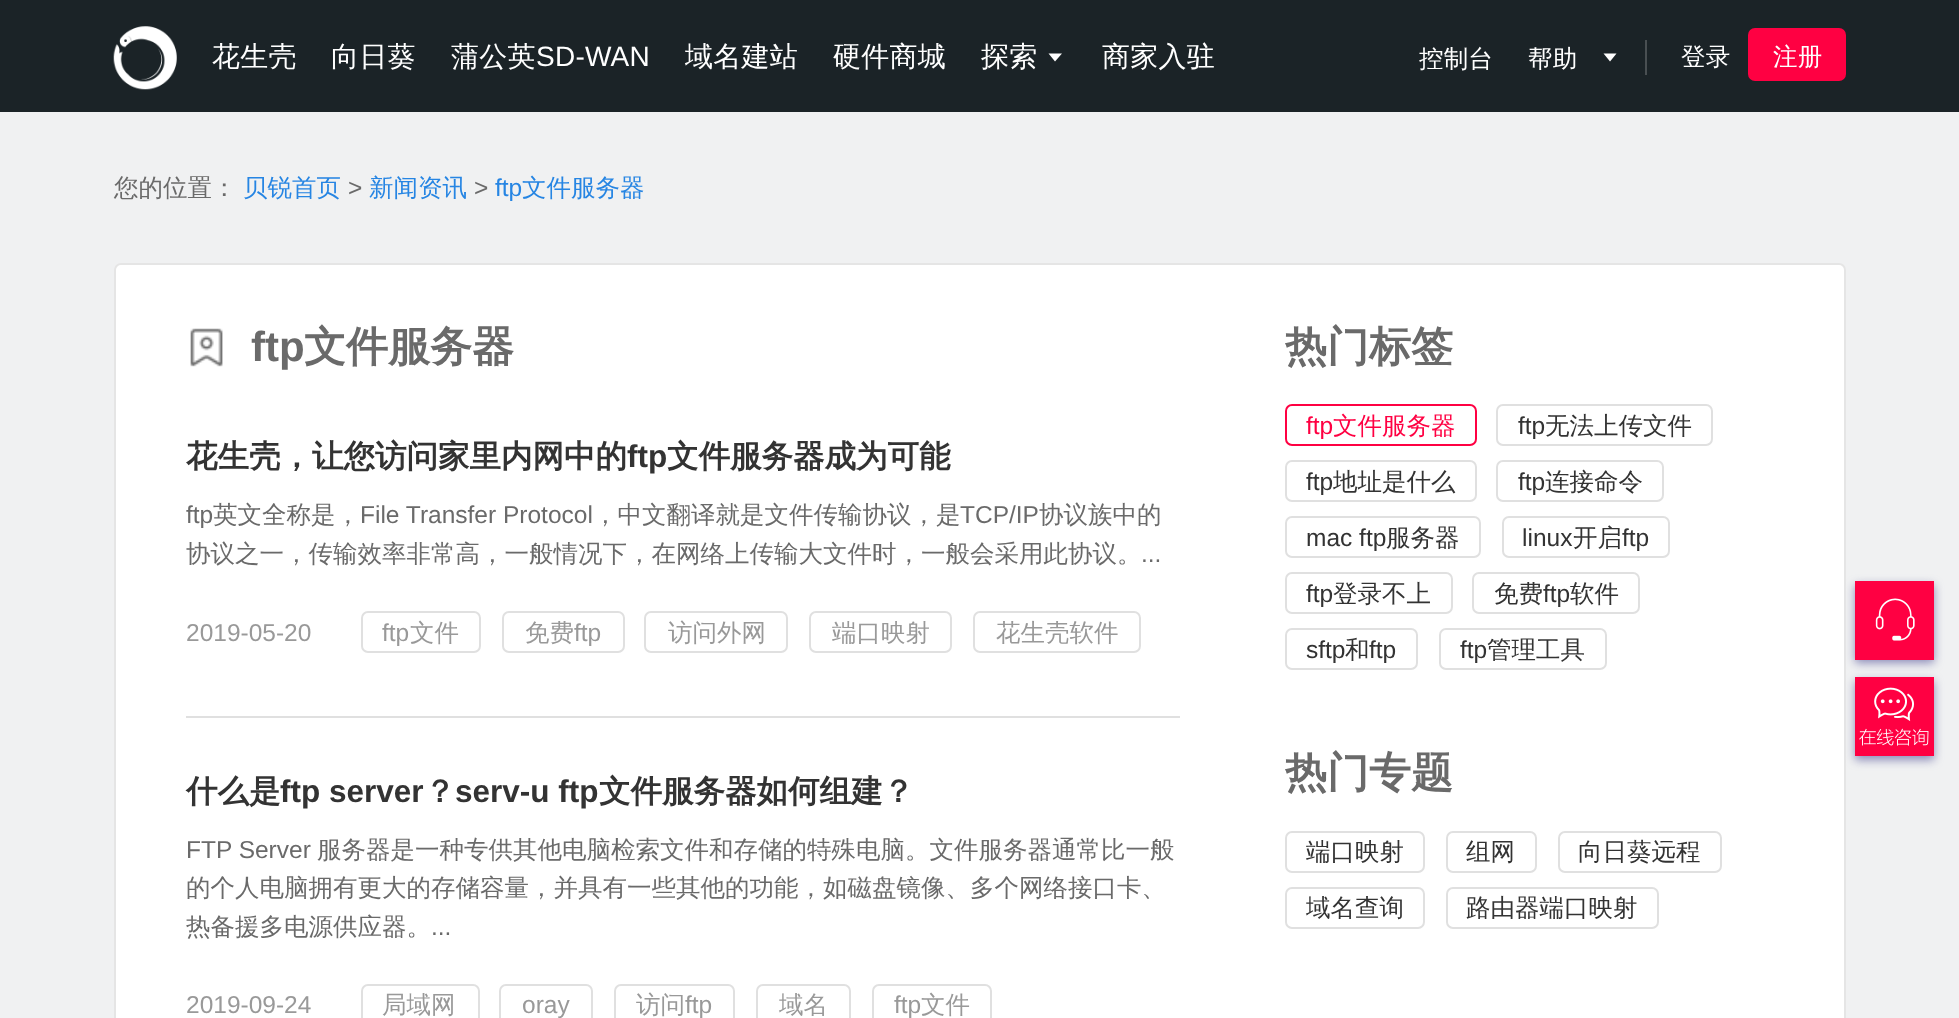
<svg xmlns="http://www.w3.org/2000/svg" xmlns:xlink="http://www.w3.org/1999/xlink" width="1959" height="1018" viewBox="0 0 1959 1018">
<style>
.cls-1{font:500 28px WenQuanYi Zen Hei;letter-spacing:0.25px;fill:#ffffff}
.cls-2{font:28px Liberation Sans;letter-spacing:0.25px;fill:#ffffff}
.cls-3{font:500 24.5px WenQuanYi Zen Hei;letter-spacing:0.25px;fill:#ffffff}
.cls-4{font:500 24.5px WenQuanYi Zen Hei;fill:#6a6a6a}
.cls-5{font:500 24.5px WenQuanYi Zen Hei;fill:#2685e3}
.cls-6{font:24.5px Liberation Sans;fill:#6a6a6a}
.cls-7{font:24.5px Liberation Sans;fill:#2685e3}
.cls-8{font:bold 42px Liberation Sans;fill:#6a6a6a}
.cls-9{font:bold 42px WenQuanYi Zen Hei;fill:#6a6a6a}
.cls-10{font:bold 31.5px WenQuanYi Zen Hei;fill:#333333}
.cls-11{font:bold 31.5px Liberation Sans;fill:#333333}
.cls-12{font:24.5px Liberation Sans;fill:#999999}
.cls-13{font:500 24.5px WenQuanYi Zen Hei;fill:#999999}
.cls-14{font:24.5px Liberation Sans;fill:#ff0042}
.cls-15{font:500 24.5px WenQuanYi Zen Hei;fill:#ff0042}
.cls-16{font:24.5px Liberation Sans;fill:#333333}
.cls-17{font:500 24.5px WenQuanYi Zen Hei;fill:#333333}
</style>
<rect width="100%" height="100%" fill="#f0f1f2"/>
<rect fill="#1b2327" x="0" y="0" width="1959" height="112"/>
<image xlink:href="image0.png" x="113" y="26" width="64" height="64"/>
<path fill="#ffffff" d="M1048.5 53.5L1055 61.5L1062 53.5Z"/>
<path fill="#ffffff" d="M1603.5 53.5L1610 61.5L1616.5 53.5Z"/>
<rect fill="#494f52" x="1645" y="40" width="2" height="35"/>
<rect fill="#ff0042" x="1748" y="28" width="98" height="53" rx="7"/>
<rect fill="#ffffff" stroke="#e5e5e5" stroke-width="2" x="115" y="264" width="1730" height="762" rx="6"/>
<image xlink:href="image1.png" x="190" y="328" width="33" height="39"/>
<rect fill="#e0e0e0" x="186" y="716" width="994" height="2"/>
<rect fill="none" stroke="#e0e0e0" stroke-width="2" x="362" y="612" width="118" height="40" rx="6"/>
<rect fill="none" stroke="#e0e0e0" stroke-width="2" x="503" y="612" width="121" height="40" rx="6"/>
<rect fill="none" stroke="#e0e0e0" stroke-width="2" x="645" y="612" width="142" height="40" rx="6"/>
<rect fill="none" stroke="#e0e0e0" stroke-width="2" x="810" y="612" width="141" height="40" rx="6"/>
<rect fill="none" stroke="#e0e0e0" stroke-width="2" x="974" y="612" width="166" height="40" rx="6"/>
<rect fill="none" stroke="#e0e0e0" stroke-width="2" x="362" y="985" width="117" height="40" rx="6"/>
<rect fill="none" stroke="#e0e0e0" stroke-width="2" x="500" y="985" width="92" height="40" rx="6"/>
<rect fill="none" stroke="#e0e0e0" stroke-width="2" x="615" y="985" width="119" height="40" rx="6"/>
<rect fill="none" stroke="#e0e0e0" stroke-width="2" x="757" y="985" width="93" height="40" rx="6"/>
<rect fill="none" stroke="#e0e0e0" stroke-width="2" x="873" y="985" width="118" height="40" rx="6"/>
<rect fill="none" stroke="#ff0042" stroke-width="2" x="1286" y="405" width="190" height="40" rx="6"/>
<rect fill="none" stroke="#e0e0e0" stroke-width="2" x="1497" y="405" width="215" height="40" rx="6"/>
<rect fill="none" stroke="#e0e0e0" stroke-width="2" x="1286" y="461" width="190" height="40" rx="6"/>
<rect fill="none" stroke="#e0e0e0" stroke-width="2" x="1497" y="461" width="166" height="40" rx="6"/>
<rect fill="none" stroke="#e0e0e0" stroke-width="2" x="1286" y="517" width="194" height="40" rx="6"/>
<rect fill="none" stroke="#e0e0e0" stroke-width="2" x="1503" y="517" width="166" height="40" rx="6"/>
<rect fill="none" stroke="#e0e0e0" stroke-width="2" x="1286" y="573" width="166" height="40" rx="6"/>
<rect fill="none" stroke="#e0e0e0" stroke-width="2" x="1473" y="573" width="166" height="40" rx="6"/>
<rect fill="none" stroke="#e0e0e0" stroke-width="2" x="1286" y="629" width="131" height="40" rx="6"/>
<rect fill="none" stroke="#e0e0e0" stroke-width="2" x="1440" y="629" width="166" height="40" rx="6"/>
<rect fill="none" stroke="#e0e0e0" stroke-width="2" x="1286" y="832" width="138" height="40" rx="6"/>
<rect fill="none" stroke="#e0e0e0" stroke-width="2" x="1447" y="832" width="89" height="40" rx="6"/>
<rect fill="none" stroke="#e0e0e0" stroke-width="2" x="1559" y="832" width="162" height="40" rx="6"/>
<rect fill="none" stroke="#e0e0e0" stroke-width="2" x="1286" y="888" width="138" height="40" rx="6"/>
<rect fill="none" stroke="#e0e0e0" stroke-width="2" x="1447" y="888" width="211" height="40" rx="6"/>
<rect fill="#5f5fa0" fill-opacity="0.7" filter="blur(5px)" x="1855" y="585" width="79" height="78"/>
<rect fill="#ff0042" x="1855" y="581" width="79" height="79"/>
<image xlink:href="image2.png" x="1875" y="598" width="40" height="43"/>
<rect fill="#5f5fa0" fill-opacity="0.7" filter="blur(5px)" x="1855" y="681" width="79" height="79"/>
<rect fill="#ff0042" x="1855" y="677" width="79" height="79"/>
<image xlink:href="image3.png" x="1859" y="687" width="70" height="59"/>
<text class="cls-1" x="212" y="66">花生壳</text>
<text class="cls-1" x="331" y="66">向日葵</text>
<text class="cls-1" x="451" y="66">蒲公英</text>
<text class="cls-2" x="536" y="66">SD-WAN</text>
<text class="cls-1" x="685" y="66">域名建站</text>
<text class="cls-1" x="833" y="66">硬件商城</text>
<text class="cls-1" x="981" y="66">探索</text>
<text class="cls-1" x="1102" y="66">商家入驻</text>
<text class="cls-3" x="1419" y="67">控制台</text>
<text class="cls-3" x="1528" y="67">帮助</text>
<text class="cls-3" x="1681" y="65">登录</text>
<text class="cls-3" x="1773" y="65">注册</text>
<text class="cls-4" x="114" y="196">您的位置：</text>
<text class="cls-5" x="243" y="196">贝锐首页</text>
<text class="cls-6" x="348" y="196">&gt;</text>
<text class="cls-5" x="369" y="196">新闻资讯</text>
<text class="cls-6" x="474" y="196">&gt;</text>
<text class="cls-7" x="495" y="196">ftp</text>
<text class="cls-5" x="522" y="196">文件服务器</text>
<text class="cls-8" x="251" y="361">ftp</text>
<text class="cls-9" x="304" y="361">文件服务器</text>
<text class="cls-10" x="186" y="467">花生壳，让您访问家里内网中的</text>
<text class="cls-11" x="627" y="467">ftp</text>
<text class="cls-10" x="667" y="467">文件服务器成为可能</text>
<text class="cls-6" x="186" y="523">ftp</text>
<text class="cls-4" x="213" y="523">英文全称是，</text>
<text class="cls-6" x="360" y="523">File Transfer Protocol</text>
<text class="cls-4" x="593" y="523">，中文翻译就是文件传输协议，是</text>
<text class="cls-6" x="960" y="523">TCP/IP</text>
<text class="cls-4" x="1039" y="523">协议族中的</text>
<text class="cls-4" x="186" y="562">协议之一，传输效率非常高，一般情况下，在网络上传输大文件时，一般会采用此协议。</text>
<text class="cls-6" x="1141" y="562">...</text>
<text class="cls-12" x="186" y="641">2019-05-20</text>
<text class="cls-12" x="382" y="641">ftp</text>
<text class="cls-13" x="410" y="641">文件</text>
<text class="cls-13" x="525" y="641">免费</text>
<text class="cls-12" x="574" y="641">ftp</text>
<text class="cls-13" x="668" y="641">访问外网</text>
<text class="cls-13" x="832" y="641">端口映射</text>
<text class="cls-13" x="996" y="641">花生壳软件</text>
<text class="cls-10" x="186" y="802">什么是</text>
<text class="cls-11" x="280" y="802">ftp server</text>
<text class="cls-10" x="424" y="802">？</text>
<text class="cls-11" x="455" y="802">serv-u ftp</text>
<text class="cls-10" x="599" y="802">文件服务器如何组建？</text>
<text class="cls-6" x="186" y="858">FTP Server</text>
<text class="cls-4" x="317" y="858">服务器是一种专供其他电脑检索文件和存储的特殊电脑。文件服务器通常比一般</text>
<text class="cls-4"><tspan x="186" y="896">的个人电脑拥有更大的存储容量，并具有一些其他的功能，如磁盘镜像、多个网络接口卡、</tspan><tspan x="186" y="935">热备援多电源供应器。</tspan></text>
<text class="cls-6" x="431" y="935">...</text>
<text class="cls-12" x="186" y="1013">2019-09-24</text>
<text class="cls-13" x="382" y="1013">局域网</text>
<text class="cls-12" x="522" y="1013">oray</text>
<text class="cls-13" x="636" y="1013">访问</text>
<text class="cls-12" x="685" y="1013">ftp</text>
<text class="cls-13" x="779" y="1013">域名</text>
<text class="cls-12" x="894" y="1013">ftp</text>
<text class="cls-13" x="921" y="1013">文件</text>
<text class="cls-9" x="1285" y="361">热门标签</text>
<text class="cls-14" x="1306" y="434">ftp</text>
<text class="cls-15" x="1333" y="434">文件服务器</text>
<text class="cls-16" x="1518" y="434">ftp</text>
<text class="cls-17" x="1545" y="434">无法上传文件</text>
<text class="cls-16" x="1306" y="490">ftp</text>
<text class="cls-17" x="1333" y="490">地址是什么</text>
<text class="cls-16" x="1518" y="490">ftp</text>
<text class="cls-17" x="1545" y="490">连接命令</text>
<text class="cls-16" x="1306" y="546">mac ftp</text>
<text class="cls-17" x="1386" y="546">服务器</text>
<text class="cls-16" x="1522" y="546">linux</text>
<text class="cls-17" x="1573" y="546">开启</text>
<text class="cls-16" x="1622" y="546">ftp</text>
<text class="cls-16" x="1306" y="602">ftp</text>
<text class="cls-17" x="1333" y="602">登录不上</text>
<text class="cls-17" x="1494" y="602">免费</text>
<text class="cls-16" x="1543" y="602">ftp</text>
<text class="cls-17" x="1570" y="602">软件</text>
<text class="cls-16" x="1306" y="658">sftp</text>
<text class="cls-17" x="1345" y="658">和</text>
<text class="cls-16" x="1369" y="658">ftp</text>
<text class="cls-16" x="1460" y="658">ftp</text>
<text class="cls-17" x="1487" y="658">管理工具</text>
<text class="cls-9" x="1285" y="787">热门专题</text>
<text class="cls-17" x="1306" y="860">端口映射</text>
<text class="cls-17" x="1466" y="860">组网</text>
<text class="cls-17" x="1578" y="860">向日葵远程</text>
<text class="cls-17" x="1306" y="916">域名查询</text>
<text class="cls-17" x="1466" y="916">路由器端口映射</text>
</svg>
